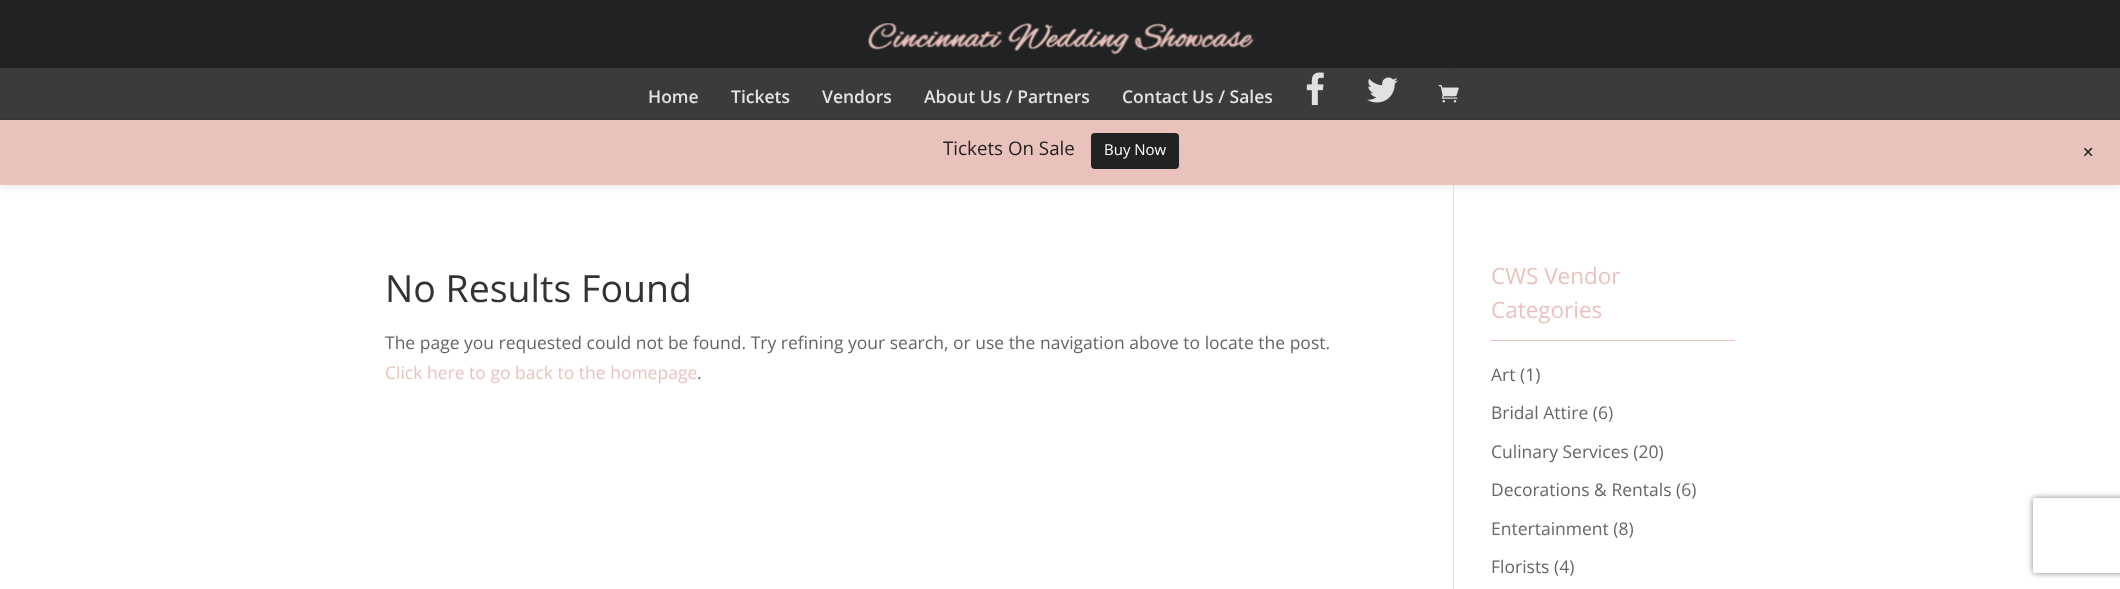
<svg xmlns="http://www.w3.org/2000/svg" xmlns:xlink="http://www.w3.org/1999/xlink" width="2120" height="589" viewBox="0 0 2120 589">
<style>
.cls-1{font:600 17.5px Open Sans;fill:#e1e2e2}
.cls-2{font:18.75px Open Sans;fill:#222222}
.cls-3{font:15px Open Sans;fill:#ffffff}
.cls-4{font:22.5px Open Sans;fill:#222222}
.cls-5{font:37.5px Open Sans;fill:#333333}
.cls-6{font:17.5px Open Sans;fill:#666666}
.cls-7{font:17.5px Open Sans;fill:#e9c2bc}
.cls-8{font:22.5px Open Sans;fill:#e9c2bc}
</style>
<defs>
<clipPath id="clip1"><path d="M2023 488H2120V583H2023ZM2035.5 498H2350.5C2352 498 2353 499 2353 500.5V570.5C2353 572 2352 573 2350.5 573H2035.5C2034 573 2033 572 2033 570.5V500.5C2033 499 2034 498 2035.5 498Z" clip-rule="evenodd"/></clipPath>
</defs>
<rect width="100%" height="100%" fill="#ffffff"/>
<image xlink:href="image0.png" x="0" y="0" width="2120" height="68"/>
<rect fill="#e2e2e2" x="1453" y="68" width="1" height="521"/>
<rect fill="#000000" fill-opacity="0.05" filter="blur(2.5px)" x="0" y="121" width="2120" height="68"/>
<rect fill="#e9c2bc" x="0" y="118" width="2120" height="67"/>
<rect fill="#242627" fill-opacity="0.9" x="0" y="0" width="2120" height="120"/>
<image xlink:href="image1.png" x="868" y="23" width="386" height="32"/>
<image xlink:href="image2.png" x="1306" y="72" width="18" height="33"/>
<image xlink:href="image3.png" x="1367" y="77" width="31" height="26"/>
<image xlink:href="image4.png" x="1438" y="85" width="21" height="18"/>
<rect fill="#222222" x="1091" y="133" width="88" height="36" rx="4"/>
<rect fill="#e9c2bc" x="1491" y="340" width="244" height="1"/>
<g clip-path="url(#clip1)">
<rect fill="#808080" filter="blur(3px)" x="2033" y="498" width="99" height="75" rx="2.5"/>
</g>
<text class="cls-1" x="648" y="103">Home</text>
<text class="cls-1" x="731" y="103">Tickets</text>
<text class="cls-1" x="822" y="103">Vendors</text>
<text class="cls-1" x="924" y="103">About Us / Partners</text>
<text class="cls-1" x="1122" y="103">Contact Us / Sales</text>
<text class="cls-2" x="943" y="155">Tickets On Sale</text>
<text class="cls-3" x="1104" y="155">Buy Now</text>
<text class="cls-4" x="2078" y="153" transform="rotate(45 2078 153)">+</text>
<text class="cls-5" x="385" y="302">No Results Found</text>
<text class="cls-6" x="385" y="349">The page you requested could not be found. Try refining your search, or use the navigation above to locate the post.</text>
<text class="cls-7" x="385" y="379">Click here to go back to the homepage</text>
<text class="cls-6" x="697" y="379">.</text>
<text class="cls-8"><tspan x="1491" y="284">CWS Vendor</tspan><tspan x="1491" y="318">Categories</tspan></text>
<text class="cls-6" x="1491" y="381">Art (1)</text>
<text class="cls-6" x="1491" y="419">Bridal Attire (6)</text>
<text class="cls-6" x="1491" y="458">Culinary Services (20)</text>
<text class="cls-6" x="1491" y="496">Decorations &amp; Rentals (6)</text>
<text class="cls-6" x="1491" y="535">Entertainment (8)</text>
<text class="cls-6" x="1491" y="573">Florists (4)</text>
</svg>
